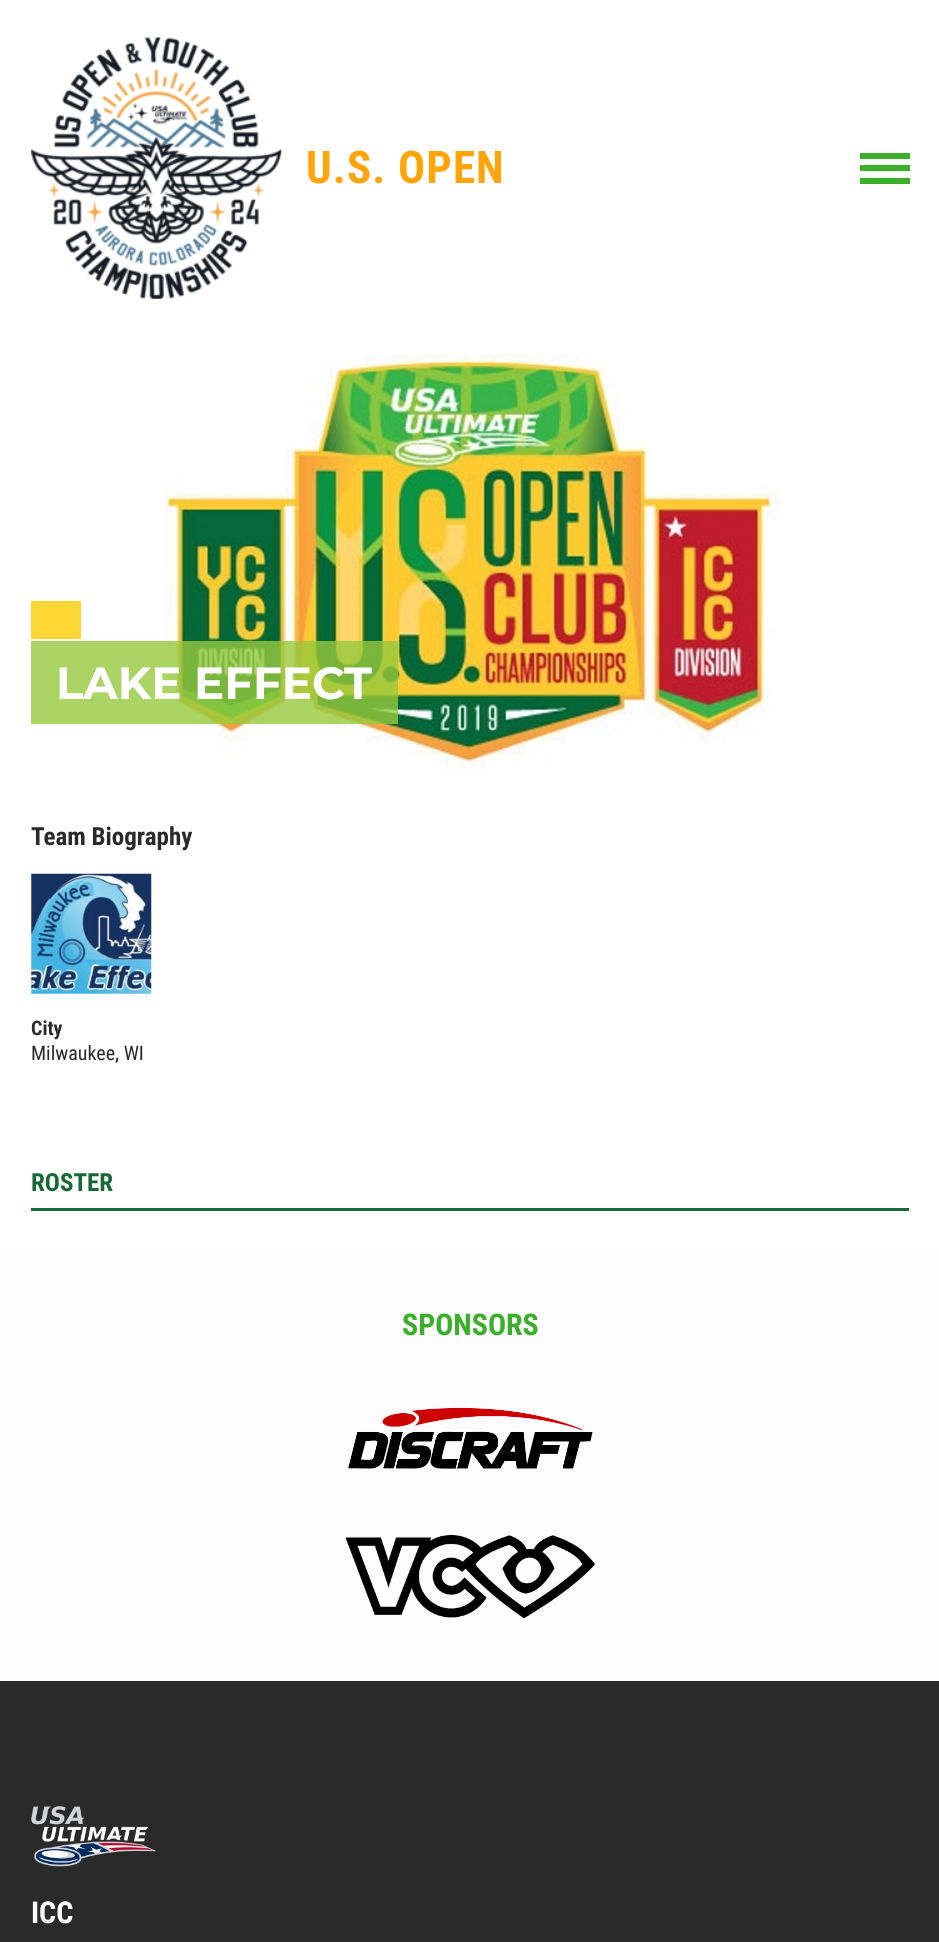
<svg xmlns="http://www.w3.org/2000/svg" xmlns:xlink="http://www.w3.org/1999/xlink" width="939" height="1942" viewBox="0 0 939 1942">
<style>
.cls-1{font:bold 45px Roboto Condensed;letter-spacing:1.1px;fill:#ffa409}
.cls-2{font:bold 45px Montserrat;fill:#ffffff}
.cls-3{font:bold 25px Roboto Condensed;fill:#2a2a2a}
.cls-4{font:bold 20px Roboto Condensed;fill:#2a2a2a}
.cls-5{font:20px Roboto Condensed;fill:#2a2a2a}
.cls-6{font:bold 25px Roboto Condensed;fill:#166936}
.cls-7{font:bold 30px Roboto Condensed;fill:#3baf29}
.cls-8{font:bold 30px Roboto Condensed;fill:#ffffff}
</style>
<rect width="100%" height="100%" fill="#ffffff"/>
<image xlink:href="image0.png" x="31" y="37" width="251" height="262"/>
<rect fill="#3baf29" x="860" y="165" width="50" height="6"/>
<rect fill="#3baf29" x="860" y="153" width="50" height="6"/>
<rect fill="#3baf29" x="860" y="178" width="50" height="6"/>
<image xlink:href="image1.png" x="165" y="353" width="614" height="419"/>
<rect fill="#fdd834" x="31" y="601" width="50" height="38"/>
<rect fill="#96c93d" fill-opacity="0.8" x="31" y="641" width="367" height="83"/>
<image xlink:href="image2.png" x="31" y="873" width="121" height="121"/>
<rect fill="#166936" x="31" y="1208" width="878" height="3"/>
<rect fill="#fcfcfc" x="0" y="1248" width="939" height="433"/>
<image xlink:href="image3.png" x="348" y="1407" width="245" height="62"/>
<image xlink:href="image4.png" x="345" y="1535" width="250" height="84"/>
<rect fill="#2a2a2a" x="0" y="1681" width="939" height="261"/>
<image xlink:href="image5.png" x="31" y="1806" width="126" height="61"/>
<text class="cls-1" x="306" y="183">U.S. OPEN</text>
<text class="cls-2" x="56" y="699">LAKE EFFECT</text>
<text class="cls-3" x="31" y="845">Team Biography</text>
<text class="cls-4" x="31" y="1035">City</text>
<text class="cls-5" x="31" y="1060">Milwaukee, WI</text>
<text class="cls-6" x="31" y="1191">ROSTER</text>
<text class="cls-7" x="402" y="1335">SPONSORS</text>
<text class="cls-8" x="31" y="1923">ICC</text>
</svg>
